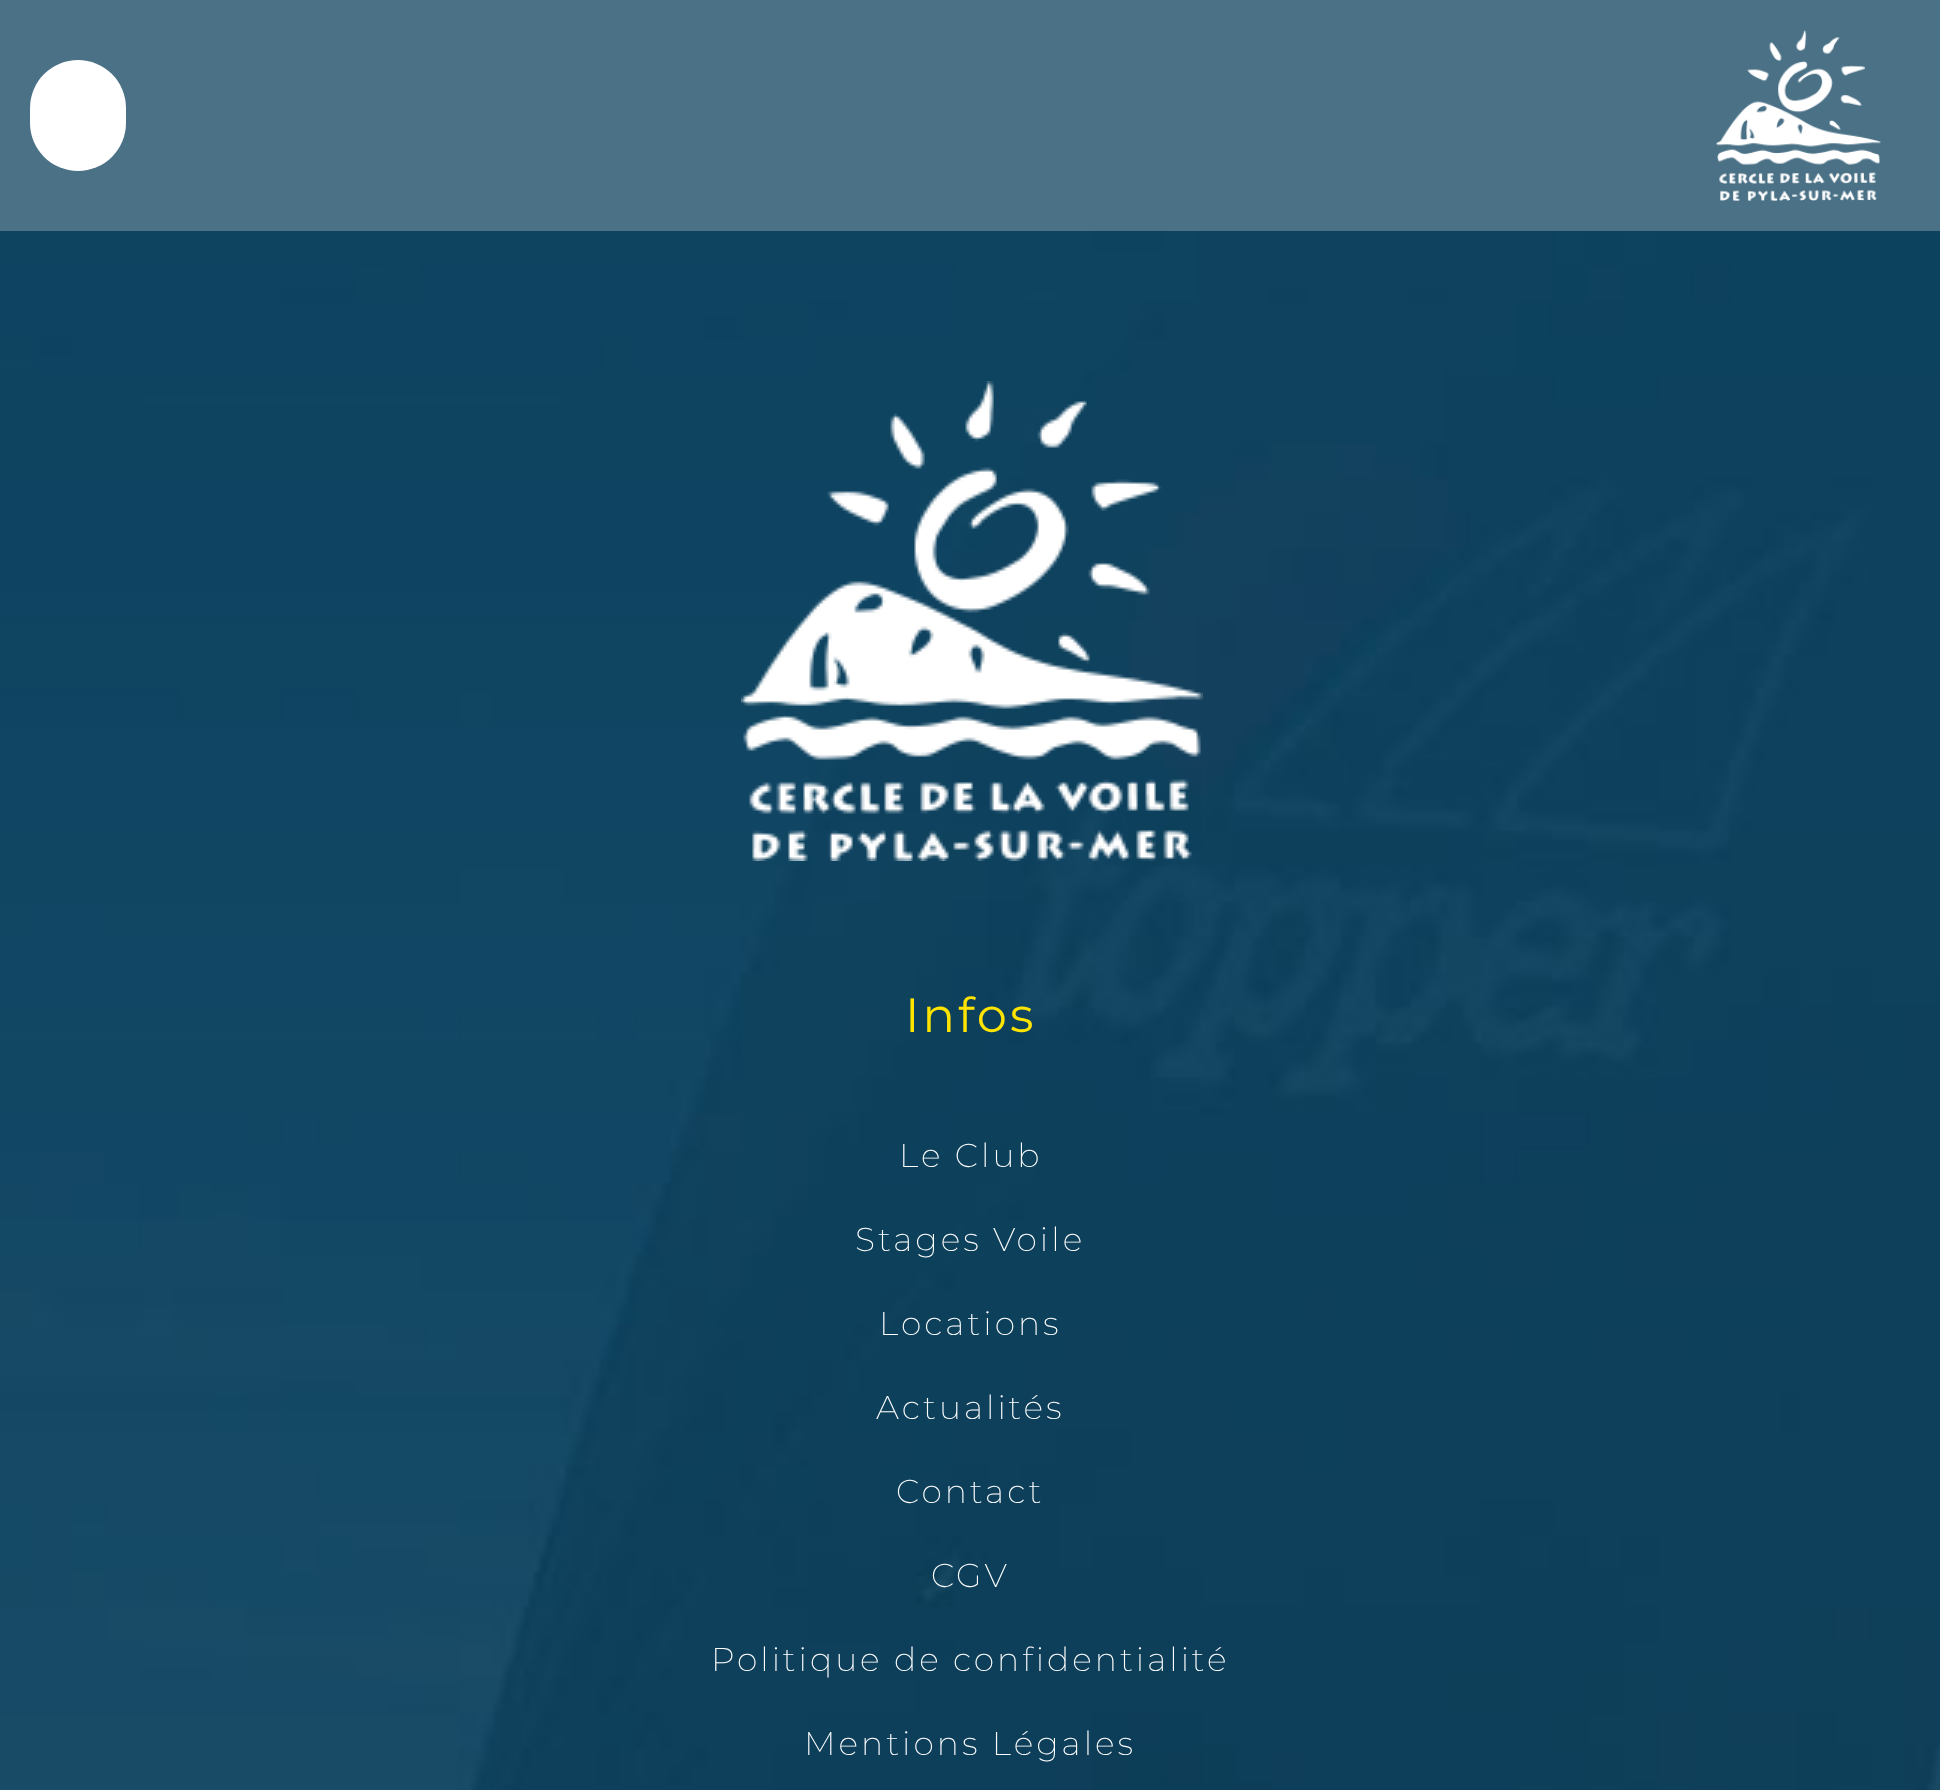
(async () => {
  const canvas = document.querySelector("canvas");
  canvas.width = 1940;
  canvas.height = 1790;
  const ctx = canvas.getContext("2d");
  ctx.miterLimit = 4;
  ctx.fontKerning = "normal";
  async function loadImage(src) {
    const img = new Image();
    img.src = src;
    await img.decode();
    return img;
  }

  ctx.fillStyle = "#ffffff";
  ctx.fillRect(0, 0, 1940, 1790);
  ctx.fillStyle = "#4a7186";
  ctx.fillRect(0, 0, 1940, 231);
  ctx.fillStyle = "#ffffff";
  ctx.beginPath();
  ctx.roundRect(30, 60, 96, 111, 48);
  ctx.fill();
  ctx.drawImage(await loadImage("img/1.png"), 1716, 30, 165, 171);
  ctx.drawImage(await loadImage("img/2.png"), 0, 231, 1940, 1559);
  ctx.drawImage(await loadImage("img/3.png"), 741, 381, 462, 480);
  ctx.letterSpacing = "3px";
  ctx.font = "48px Montserrat";
  ctx.fillStyle = "#ffe400";
  ctx.fillText("Infos", 905, 1032);
  ctx.font = "200 33px Montserrat";
  ctx.fillStyle = "#ffffff";
  for (const [text, x, y] of [
    ["Le Club", 899, 1167],
    ["Stages Voile", 855, 1251],
    ["Locations", 879, 1335],
    ["Actualités", 876, 1419],
    ["Contact", 896, 1503],
    ["CGV", 931, 1587],
    ["Politique de confidentialité", 711, 1671],
    ["Mentions Légales", 804, 1755],
  ]) {
    ctx.fillText(text, x, y);
  }
})();
